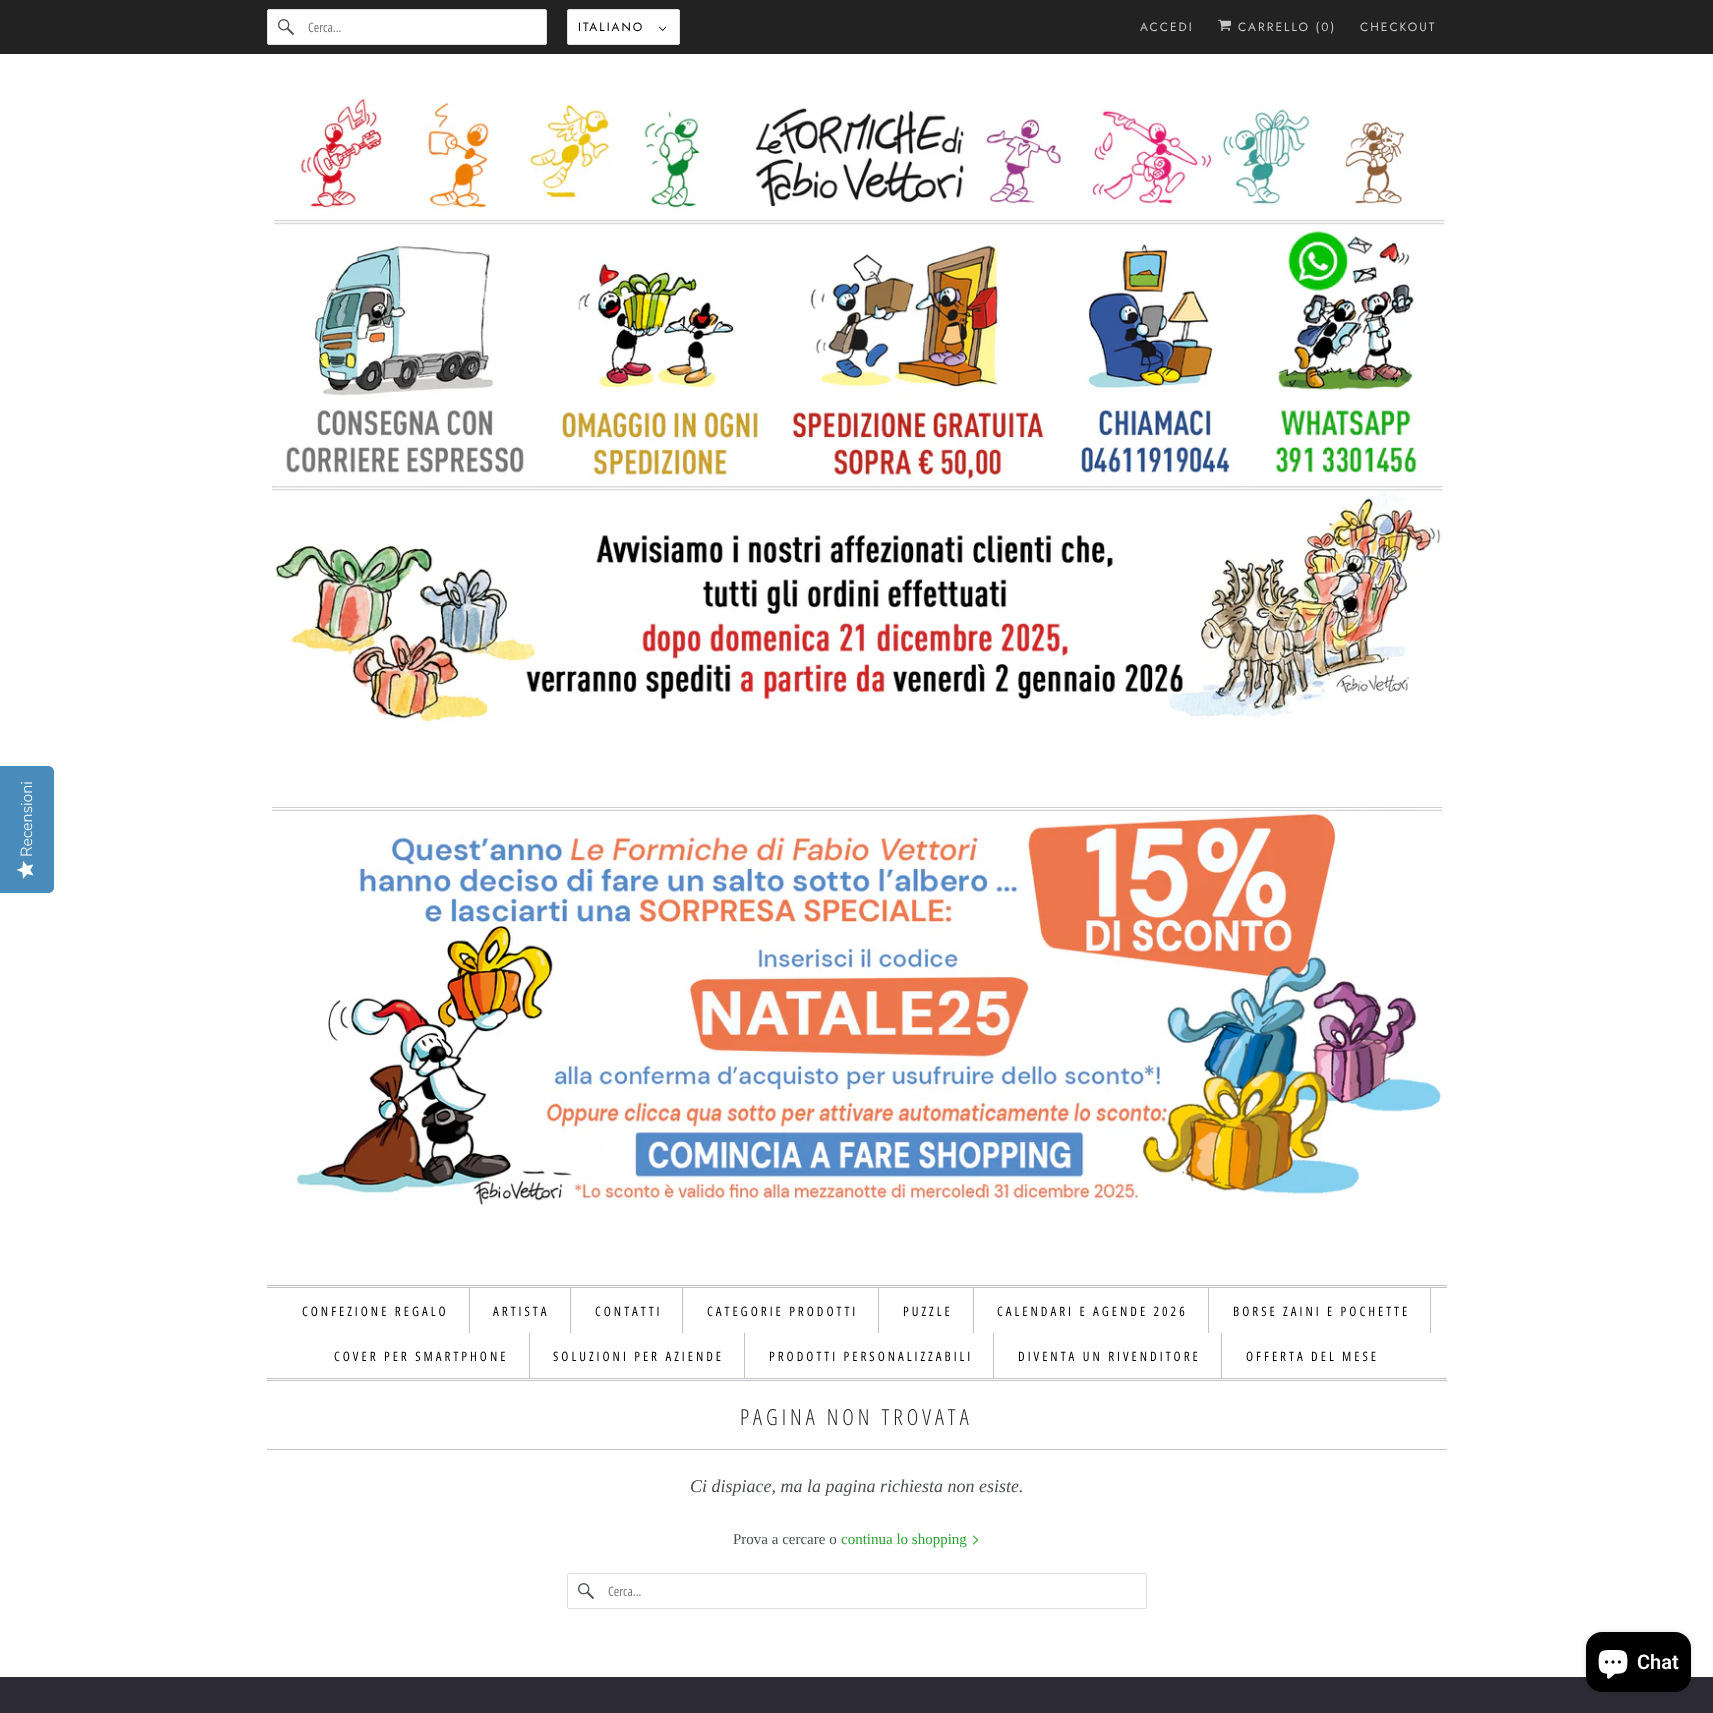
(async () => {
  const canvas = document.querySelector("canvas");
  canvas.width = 1713;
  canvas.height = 1713;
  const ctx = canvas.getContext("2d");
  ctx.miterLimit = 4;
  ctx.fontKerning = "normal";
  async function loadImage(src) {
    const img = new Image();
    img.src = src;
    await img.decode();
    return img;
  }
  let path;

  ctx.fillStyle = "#ffffff";
  ctx.fillRect(0, 0, 1713, 1713);
  ctx.fillStyle = "#222222";
  ctx.fillRect(0, 0, 1713, 54);
  ctx.fillStyle = "#ffffff";
  ctx.beginPath();
  ctx.roundRect(267.5, 9.5, 279, 35, 1.5);
  ctx.fill();
  ctx.strokeStyle = "#dfdfdf";
  ctx.stroke();
  ctx.drawImage(await loadImage("img/1.png"), 278, 19, 16, 16);
  ctx.beginPath();
  ctx.roundRect(567.5, 9.5, 112, 35, 1.5);
  ctx.fill();
  ctx.stroke();
  ctx.drawImage(await loadImage("img/2.png"), 659, 26, 8, 5);
  ctx.drawImage(await loadImage("img/3.png"), 1218, 19, 13, 12);
  ctx.drawImage(await loadImage("img/4.png"), 271, 94, 1174, 629);
  ctx.fillStyle = "#498cbc";
  path = new Path2D("M0 893V766H48C51 766 54 768 54 772V887C54 891 51 893 48 893Z");
  ctx.fill(path);
  ctx.drawImage(await loadImage("img/5.png"), 16, 861, 18, 18);
  ctx.drawImage(await loadImage("img/6.png"), 272, 807, 1173, 399);
  for (const [x, y, w, h, color] of [
    [267, 1285, 1180, 1, "#c2c1cc"],
    [267, 1287, 1180, 1, "#c2c1cc"],
    [267, 1378, 1180, 1, "#c2c1cc"],
    [267, 1380, 1180, 1, "#c2c1cc"],
    [469, 1288, 1, 45, "#c2c1cc"],
    [570, 1288, 1, 45, "#c2c1cc"],
    [682, 1288, 1, 45, "#c2c1cc"],
    [878, 1288, 1, 45, "#c2c1cc"],
    [973, 1288, 1, 45, "#c2c1cc"],
    [1208, 1288, 1, 45, "#c2c1cc"],
    [1430, 1288, 1, 45, "#c2c1cc"],
    [529, 1333, 1, 45, "#c2c1cc"],
    [744, 1333, 1, 45, "#c2c1cc"],
    [993, 1333, 1, 45, "#c2c1cc"],
    [1221, 1333, 1, 45, "#c2c1cc"],
    [267, 1449, 1180, 1, "#c2c1cc"],
  ]) {
    ctx.fillStyle = color;
    ctx.fillRect(x, y, w, h);
  }
  ctx.drawImage(await loadImage("img/7.png"), 972, 1535, 6, 10);
  ctx.beginPath();
  ctx.roundRect(567.5, 1573.5, 579, 35, 1.5);
  ctx.stroke();
  ctx.drawImage(await loadImage("img/1.png"), 578, 1583, 16, 16);
  ctx.fillStyle = "#2d2b35";
  ctx.fillRect(0, 1677, 1713, 36);
  ctx.fillStyle = "rgba(0, 0, 0, 0.15)";
  ctx.filter = "blur(2.5px)";
  ctx.beginPath();
  ctx.roundRect(1586, 1632, 105, 60, 16);
  ctx.fill();
  ctx.filter = "none";
  ctx.fillStyle = "#000000";
  ctx.beginPath();
  ctx.roundRect(1586, 1632, 105, 60, 16);
  ctx.fill();
  ctx.drawImage(await loadImage("img/8.png"), 1598, 1650, 30, 29);
  ctx.font = "13px Open Sans Condensed";
  ctx.fillStyle = "#757575";
  ctx.fillText("Cerca...", 308, 32);
  ctx.letterSpacing = "2px";
  ctx.font = "12px Jost";
  ctx.fillStyle = "#000000";
  ctx.fillText("ITALIANO", 578, 31);
  ctx.fillStyle = "#c6c6c6";
  for (const [text, x, y] of [
    ["ACCEDI", 1140, 31],
    ["CARRELLO (0)", 1238, 31],
    ["CHECKOUT", 1360, 31],
  ]) {
    ctx.fillText(text, x, y);
  }
  ctx.letterSpacing = "0px";
  ctx.font = "300 16px Nunito Sans";
  ctx.fillStyle = "#fefefe";
  ctx.save();
  ctx.translate(32, 857);
  ctx.rotate(-90 * Math.PI / 180);
  ctx.fillText("Recensioni", 0, 0);
  ctx.restore();
  ctx.letterSpacing = "3px";
  ctx.font = "13px Open Sans Condensed";
  ctx.fillStyle = "#000000";
  for (const [text, x, y] of [
    ["CONFEZIONE REGALO", 302, 1316],
    ["ARTISTA", 493, 1316],
    ["CONTATTI", 595, 1316],
    ["CATEGORIE PRODOTTI", 707, 1316],
    ["PUZZLE", 903, 1316],
    ["CALENDARI E AGENDE 2026", 997, 1316],
    ["BORSE ZAINI E POCHETTE", 1233, 1316],
    ["COVER PER SMARTPHONE", 334, 1361],
    ["SOLUZIONI PER AZIENDE", 553, 1361],
    ["PRODOTTI PERSONALIZZABILI", 769, 1361],
    ["DIVENTA UN RIVENDITORE", 1018, 1361],
    ["OFFERTA DEL MESE", 1246, 1361],
  ]) {
    ctx.fillText(text, x, y);
  }
  ctx.letterSpacing = "4px";
  ctx.font = "300 22px Open Sans Condensed";
  ctx.fillStyle = "#1f2022";
  ctx.fillText("PAGINA NON TROVATA", 740, 1425);
  ctx.letterSpacing = "0px";
  ctx.font = "italic 18px Liberation Serif";
  ctx.fillStyle = "#4b4f54";
  ctx.fillText("Ci dispiace, ma la pagina richiesta non esiste.", 690, 1492);
  ctx.font = "15px Liberation Serif";
  ctx.fillText("Prova a cercare o", 733, 1544);
  ctx.fillStyle = "#29a332";
  ctx.fillText("continua lo shopping", 841, 1544);
  ctx.font = "13px Open Sans Condensed";
  ctx.fillStyle = "#757575";
  ctx.fillText("Cerca...", 608, 1596);
  ctx.font = "600 20px Roboto";
  ctx.fillStyle = "#fefefe";
  ctx.fillText("Chat", 1637, 1669);
})();
